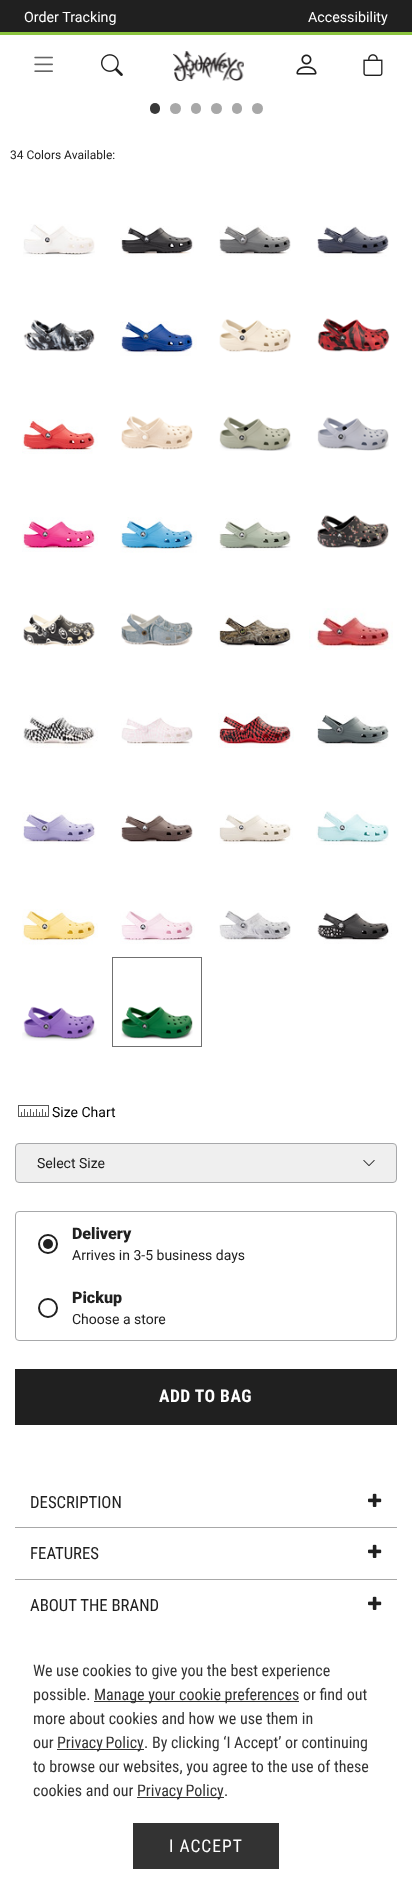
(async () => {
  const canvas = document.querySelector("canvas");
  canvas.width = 412;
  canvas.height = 1894;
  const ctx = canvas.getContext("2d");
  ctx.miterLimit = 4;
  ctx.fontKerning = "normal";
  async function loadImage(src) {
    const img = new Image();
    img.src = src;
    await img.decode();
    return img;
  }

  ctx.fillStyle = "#ffffff";
  ctx.fillRect(0, 0, 412, 1894);
  ctx.fillStyle = "#202020";
  ctx.fillRect(0, 0, 412, 32);
  ctx.fillStyle = "#8bc43e";
  ctx.fillRect(0, 32, 412, 3);
  ctx.drawImage(await loadImage("img/1.png"), 34, 56, 19, 16);
  ctx.drawImage(await loadImage("img/2.png"), 101, 54, 22, 22);
  ctx.drawImage(await loadImage("img/3.png"), 173, 51, 71, 30);
  ctx.drawImage(await loadImage("img/4.png"), 296, 54, 21, 21);
  ctx.drawImage(await loadImage("img/5.png"), 363, 54, 20, 22);
  ctx.fillStyle = "#383838";
  ctx.beginPath();
  ctx.roundRect(150, 103, 10, 11, 5);
  ctx.fill();
  ctx.fillStyle = "#a8a8a8";
  ctx.beginPath();
  ctx.arc(175.5, 108.5, 5.5, 0, Math.PI * 2);
  ctx.fill();
  ctx.beginPath();
  ctx.roundRect(191, 103, 10, 11, 5);
  ctx.fill();
  ctx.beginPath();
  ctx.arc(216.5, 108.5, 5.5, 0, Math.PI * 2);
  ctx.fill();
  ctx.beginPath();
  ctx.roundRect(232, 103, 10, 11, 5);
  ctx.fill();
  ctx.beginPath();
  ctx.arc(257.5, 108.5, 5.5, 0, Math.PI * 2);
  ctx.fill();
  ctx.drawImage(await loadImage("img/6.png"), 23, 224, 72, 33);
  ctx.drawImage(await loadImage("img/7.png"), 120, 226, 74, 31);
  ctx.drawImage(await loadImage("img/8.png"), 219, 225, 72, 31);
  ctx.drawImage(await loadImage("img/9.png"), 317, 226, 72, 31);
  ctx.drawImage(await loadImage("img/10.png"), 23, 319, 72, 33);
  ctx.drawImage(await loadImage("img/11.png"), 120, 321, 77, 35);
  ctx.drawImage(await loadImage("img/12.png"), 219, 319, 72, 34);
  ctx.drawImage(await loadImage("img/13.png"), 317, 318, 73, 34);
  ctx.drawImage(await loadImage("img/14.png"), 22, 419, 76, 35);
  ctx.drawImage(await loadImage("img/15.png"), 121, 416, 72, 34);
  ctx.drawImage(await loadImage("img/16.png"), 219, 416, 73, 35);
  ctx.drawImage(await loadImage("img/17.png"), 317, 417, 72, 34);
  ctx.drawImage(await loadImage("img/18.png"), 22, 517, 76, 35);
  ctx.drawImage(await loadImage("img/19.png"), 120, 517, 77, 36);
  ctx.drawImage(await loadImage("img/20.png"), 219, 518, 72, 33);
  ctx.drawImage(await loadImage("img/21.png"), 317, 515, 72, 33);
  ctx.drawImage(await loadImage("img/22.png"), 23, 614, 72, 32);
  ctx.drawImage(await loadImage("img/23.png"), 121, 613, 72, 33);
  ctx.drawImage(await loadImage("img/24.png"), 218, 615, 76, 32);
  ctx.drawImage(await loadImage("img/25.png"), 309, 608, 84, 42);
  ctx.drawImage(await loadImage("img/26.png"), 23, 715, 75, 33);
  ctx.drawImage(await loadImage("img/27.png"), 121, 717, 72, 29);
  ctx.drawImage(await loadImage("img/28.png"), 218, 713, 76, 35);
  ctx.drawImage(await loadImage("img/29.png"), 317, 715, 72, 32);
  ctx.drawImage(await loadImage("img/30.png"), 22, 812, 74, 32);
  ctx.drawImage(await loadImage("img/31.png"), 120, 814, 73, 28);
  ctx.drawImage(await loadImage("img/32.png"), 219, 814, 74, 30);
  ctx.drawImage(await loadImage("img/33.png"), 316, 811, 73, 34);
  ctx.drawImage(await loadImage("img/34.png"), 22, 909, 76, 36);
  ctx.drawImage(await loadImage("img/35.png"), 120, 911, 75, 33);
  ctx.drawImage(await loadImage("img/36.png"), 219, 910, 72, 32);
  ctx.drawImage(await loadImage("img/37.png"), 317, 911, 75, 33);
  ctx.drawImage(await loadImage("img/38.png"), 22, 1006, 75, 35);
  ctx.strokeStyle = "#707070";
  ctx.strokeRect(112.5, 957.5, 89, 89);
  ctx.drawImage(await loadImage("img/39.png"), 121, 1006, 72, 34);
  ctx.drawImage(await loadImage("img/40.png"), 18, 1105, 31, 12);
  ctx.fillStyle = "#efefef";
  ctx.beginPath();
  ctx.roundRect(15.5, 1143.5, 381, 39, 3.5);
  ctx.fill();
  ctx.strokeStyle = "#a7a8aa";
  ctx.stroke();
  ctx.drawImage(await loadImage("img/41.png"), 363, 1160, 12, 6);
  ctx.beginPath();
  ctx.roundRect(15.5, 1211.5, 381, 129, 3.5);
  ctx.stroke();
  ctx.beginPath();
  ctx.arc(48, 1244, 9, 0, Math.PI * 2);
  ctx.strokeStyle = "#202020";
  ctx.lineWidth = 2;
  ctx.stroke();
  ctx.fillStyle = "#202020";
  ctx.beginPath();
  ctx.arc(48, 1244, 5, 0, Math.PI * 2);
  ctx.fill();
  ctx.beginPath();
  ctx.arc(48, 1308, 9, 0, Math.PI * 2);
  ctx.stroke();
  ctx.fillRect(15, 1369, 382, 56);
  ctx.drawImage(await loadImage("img/42.png"), 368, 1493, 14, 14);
  ctx.fillStyle = "#a8a8a8";
  ctx.fillRect(15, 1527, 382, 1);
  ctx.drawImage(await loadImage("img/42.png"), 368, 1544, 14, 14);
  ctx.fillRect(15, 1579, 382, 1);
  ctx.drawImage(await loadImage("img/42.png"), 368, 1596, 14, 14);
  for (const [x, y, w, h, color] of [
    [94, 1701, 205, 1, "#333333"],
    [57, 1749, 87, 1, "#333333"],
    [137, 1797, 87, 1, "#333333"],
    [133, 1823, 146, 46, "#333333"],
  ]) {
    ctx.fillStyle = color;
    ctx.fillRect(x, y, w, h);
  }
  ctx.font = "14.25px Roboto";
  ctx.fillStyle = "#ffffff";
  ctx.fillText("Order Tracking", 24, 22);
  ctx.fillText("Accessibility", 308, 22);
  ctx.font = "12px Roboto";
  ctx.fillStyle = "#202020";
  ctx.fillText("34 Colors Available:", 10, 159);
  ctx.font = "14px Roboto";
  ctx.fillStyle = "#000000";
  ctx.fillText("Size Chart", 52, 1117);
  ctx.fillStyle = "#202020";
  ctx.fillText("Select Size", 37, 1168);
  ctx.font = "900 16px Roboto";
  ctx.fillText("Delivery", 72, 1239);
  ctx.font = "14px Roboto";
  ctx.fillText("Arrives in 3-5 business days", 72, 1260);
  ctx.font = "900 16px Roboto";
  ctx.fillText("Pickup", 72, 1303);
  ctx.font = "14px Roboto";
  ctx.fillText("Choose a store", 72, 1324);
  ctx.letterSpacing = "0.5px";
  ctx.font = "bold 17.5px Roboto Condensed";
  ctx.fillStyle = "#ffffff";
  ctx.fillText("ADD TO BAG", 159, 1402);
  ctx.letterSpacing = "0px";
  ctx.font = "16.75px Roboto Condensed";
  ctx.fillStyle = "#202020";
  for (const [text, x, y] of [
    ["DESCRIPTION", 30, 1508],
    ["FEATURES", 30, 1559],
    ["ABOUT THE BRAND", 30, 1611],
  ]) {
    ctx.fillText(text, x, y);
  }
  ctx.font = "16px Roboto Condensed";
  ctx.fillStyle = "#333333";
  for (const [text, x, y] of [
    ["We use cookies to give you the best experience", 33, 1676],
    ["possible.", 33, 1700],
    ["Manage your cookie preferences or find out", 94, 1700],
    ["more about cookies and how we use them in", 33, 1724],
    ["our", 33, 1748],
  ]) {
    ctx.fillText(text, x, y);
  }
  ctx.wordSpacing = "-1px";
  ctx.fillText("Privacy Policy", 57, 1748);
  ctx.wordSpacing = "0px";
  for (const [text, x, y] of [
    [". By clicking ‘I Accept’ or continuing", 144, 1748],
    ["to browse our websites, you agree to the use of these", 33, 1772],
    ["cookies and our", 33, 1796],
  ]) {
    ctx.fillText(text, x, y);
  }
  ctx.wordSpacing = "-1px";
  ctx.fillText("Privacy Policy", 137, 1796);
  ctx.wordSpacing = "0px";
  ctx.fillText(".", 224, 1796);
  ctx.letterSpacing = "1px";
  ctx.font = "17.5px Roboto Condensed";
  ctx.fillStyle = "#ffffff";
  ctx.fillText("I ACCEPT", 169, 1852);
})();
